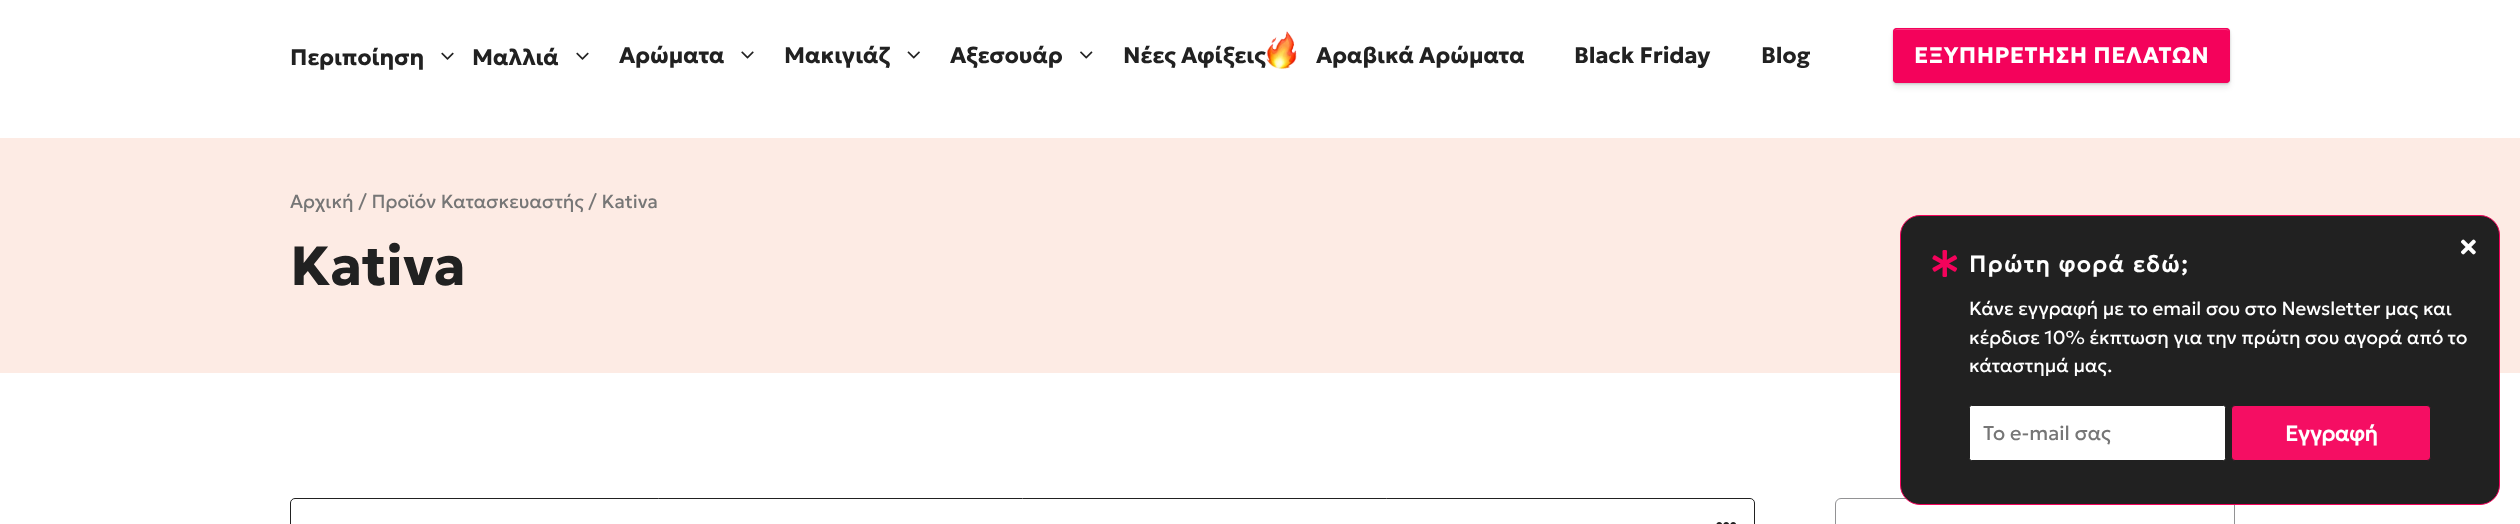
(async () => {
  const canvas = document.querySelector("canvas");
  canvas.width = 2520;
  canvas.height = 524;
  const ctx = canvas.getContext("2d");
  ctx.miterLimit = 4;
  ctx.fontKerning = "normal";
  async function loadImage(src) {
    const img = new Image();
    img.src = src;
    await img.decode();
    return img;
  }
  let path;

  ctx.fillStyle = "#ffffff";
  ctx.fillRect(0, 0, 2520, 524);
  ctx.drawImage(await loadImage("img/1.png"), 441, 52, 13, 8);
  ctx.drawImage(await loadImage("img/1.png"), 576, 52, 13, 8);
  ctx.drawImage(await loadImage("img/2.png"), 741, 51, 13, 8);
  ctx.drawImage(await loadImage("img/3.png"), 907, 51, 13, 8);
  ctx.drawImage(await loadImage("img/4.png"), 1080, 51, 13, 8);
  ctx.drawImage(await loadImage("img/5.png"), 1266, 31, 31, 38);
  ctx.fillStyle = "rgba(8, 8, 8, 0.2)";
  ctx.filter = "blur(1px)";
  ctx.beginPath();
  ctx.roundRect(1893, 29, 337, 55, 4);
  ctx.fill();
  ctx.filter = "none";
  ctx.fillStyle = "rgba(8, 8, 8, 0.08)";
  ctx.filter = "blur(2.5px)";
  ctx.beginPath();
  ctx.roundRect(1893, 33, 337, 55, 4);
  ctx.fill();
  ctx.filter = "none";
  ctx.fillStyle = "#f4025b";
  ctx.beginPath();
  ctx.roundRect(1893, 28, 337, 55, 4);
  ctx.fill();
  ctx.fillStyle = "#f6357c";
  path = new Path2D("M1896 30H2226C2228 30 2229 31 2229 32C2229 30 2228 29 2226 29H1896C1895 29 1894 30 1894 32C1894 31 1895 30 1896 30Z");
  ctx.fill(path);
  ctx.beginPath();
  ctx.roundRect(1893.5, 28.5, 336, 54, 3.5);
  ctx.strokeStyle = "#f4025b";
  ctx.stroke();
  ctx.fillStyle = "#fdebe4";
  ctx.fillRect(0, 138, 2520, 235);
  ctx.beginPath();
  ctx.roundRect(1835.5, 498.5, 399, 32, 5.5);
  ctx.strokeStyle = "#929294";
  ctx.stroke();
  ctx.fillStyle = "#212121";
  ctx.beginPath();
  ctx.roundRect(1900.5, 215.5, 599, 289, 19.5);
  ctx.fill();
  ctx.strokeStyle = "#f4025b";
  ctx.stroke();
  ctx.drawImage(await loadImage("img/6.png"), 2461, 239, 15, 16);
  ctx.drawImage(await loadImage("img/7.png"), 1932, 250, 26, 27);
  ctx.fillStyle = "#ffffff";
  ctx.beginPath();
  ctx.roundRect(1969.5, 405.5, 256, 55, 2);
  ctx.fill();
  ctx.strokeStyle = "#212121";
  ctx.stroke();
  ctx.fillStyle = "#f50e63";
  ctx.beginPath();
  ctx.roundRect(2231.5, 405.5, 199, 55, 3.5);
  ctx.fill();
  ctx.stroke();
  ctx.beginPath();
  ctx.roundRect(290.5, 498.5, 1464, 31, 4.5);
  ctx.stroke();
  ctx.drawImage(await loadImage("img/8.png"), 1716, 522, 20, 2);
  ctx.font = "100 22.5px 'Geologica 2'";
  ctx.fillStyle = "#212121";
  for (const [text, x, y] of [
    ["Περιποίηση", 290, 65],
    ["Μαλλιά", 472, 65],
    ["Αρώματα", 619, 63],
    ["Μακιγιάζ", 784, 63],
    ["Αξεσουάρ", 950, 63],
    ["Νέες Αφίξεις", 1123, 63],
    ["Αραβικά Αρώματα", 1316, 63],
    ["Black Friday", 1574, 63],
    ["Blog", 1761, 63],
  ]) {
    ctx.fillText(text, x, y);
  }
  ctx.letterSpacing = "0.5px";
  ctx.fillStyle = "#ffffff";
  ctx.fillText("ΕΞΥΠΗΡΕΤΗΣΗ ΠΕΛΑΤΩΝ", 1914, 63);
  ctx.letterSpacing = "0px";
  ctx.font = "100 18.8px Geologica";
  ctx.fillStyle = "#767676";
  ctx.fillText("Αρχική / Προϊόν Κατασκευαστής / Kativa", 290, 208);
  ctx.font = "100 55px 'Geologica 2'";
  ctx.fillStyle = "#212121";
  ctx.fillText("Kativa", 290, 285);
  ctx.letterSpacing = "1.9px";
  ctx.font = "bold 22.5px Geologica";
  ctx.fillStyle = "#ffffff";
  ctx.fillText("Πρώτη φορά εδώ;", 1969, 272);
  ctx.letterSpacing = "0px";
  ctx.font = "100 18.8px Geologica";
  for (const [text, x, y] of [
    ["Κάνε εγγραφή με το email σου στο Νewsletter μας και", 1969, 315],
    ["κέρδισε 10% έκπτωση για την πρώτη σου αγορά από το", 1969, 344],
    ["κάταστημά μας.", 1969, 372],
  ]) {
    ctx.fillText(text, x, y);
  }
  ctx.font = "100 20px Geologica";
  ctx.fillStyle = "#767676";
  ctx.fillText("Το e-mail σας", 1983, 440);
  ctx.font = "bold 21.25px Geologica";
  ctx.fillStyle = "#ffffff";
  ctx.fillText("Εγγραφή", 2285, 441);
})();
